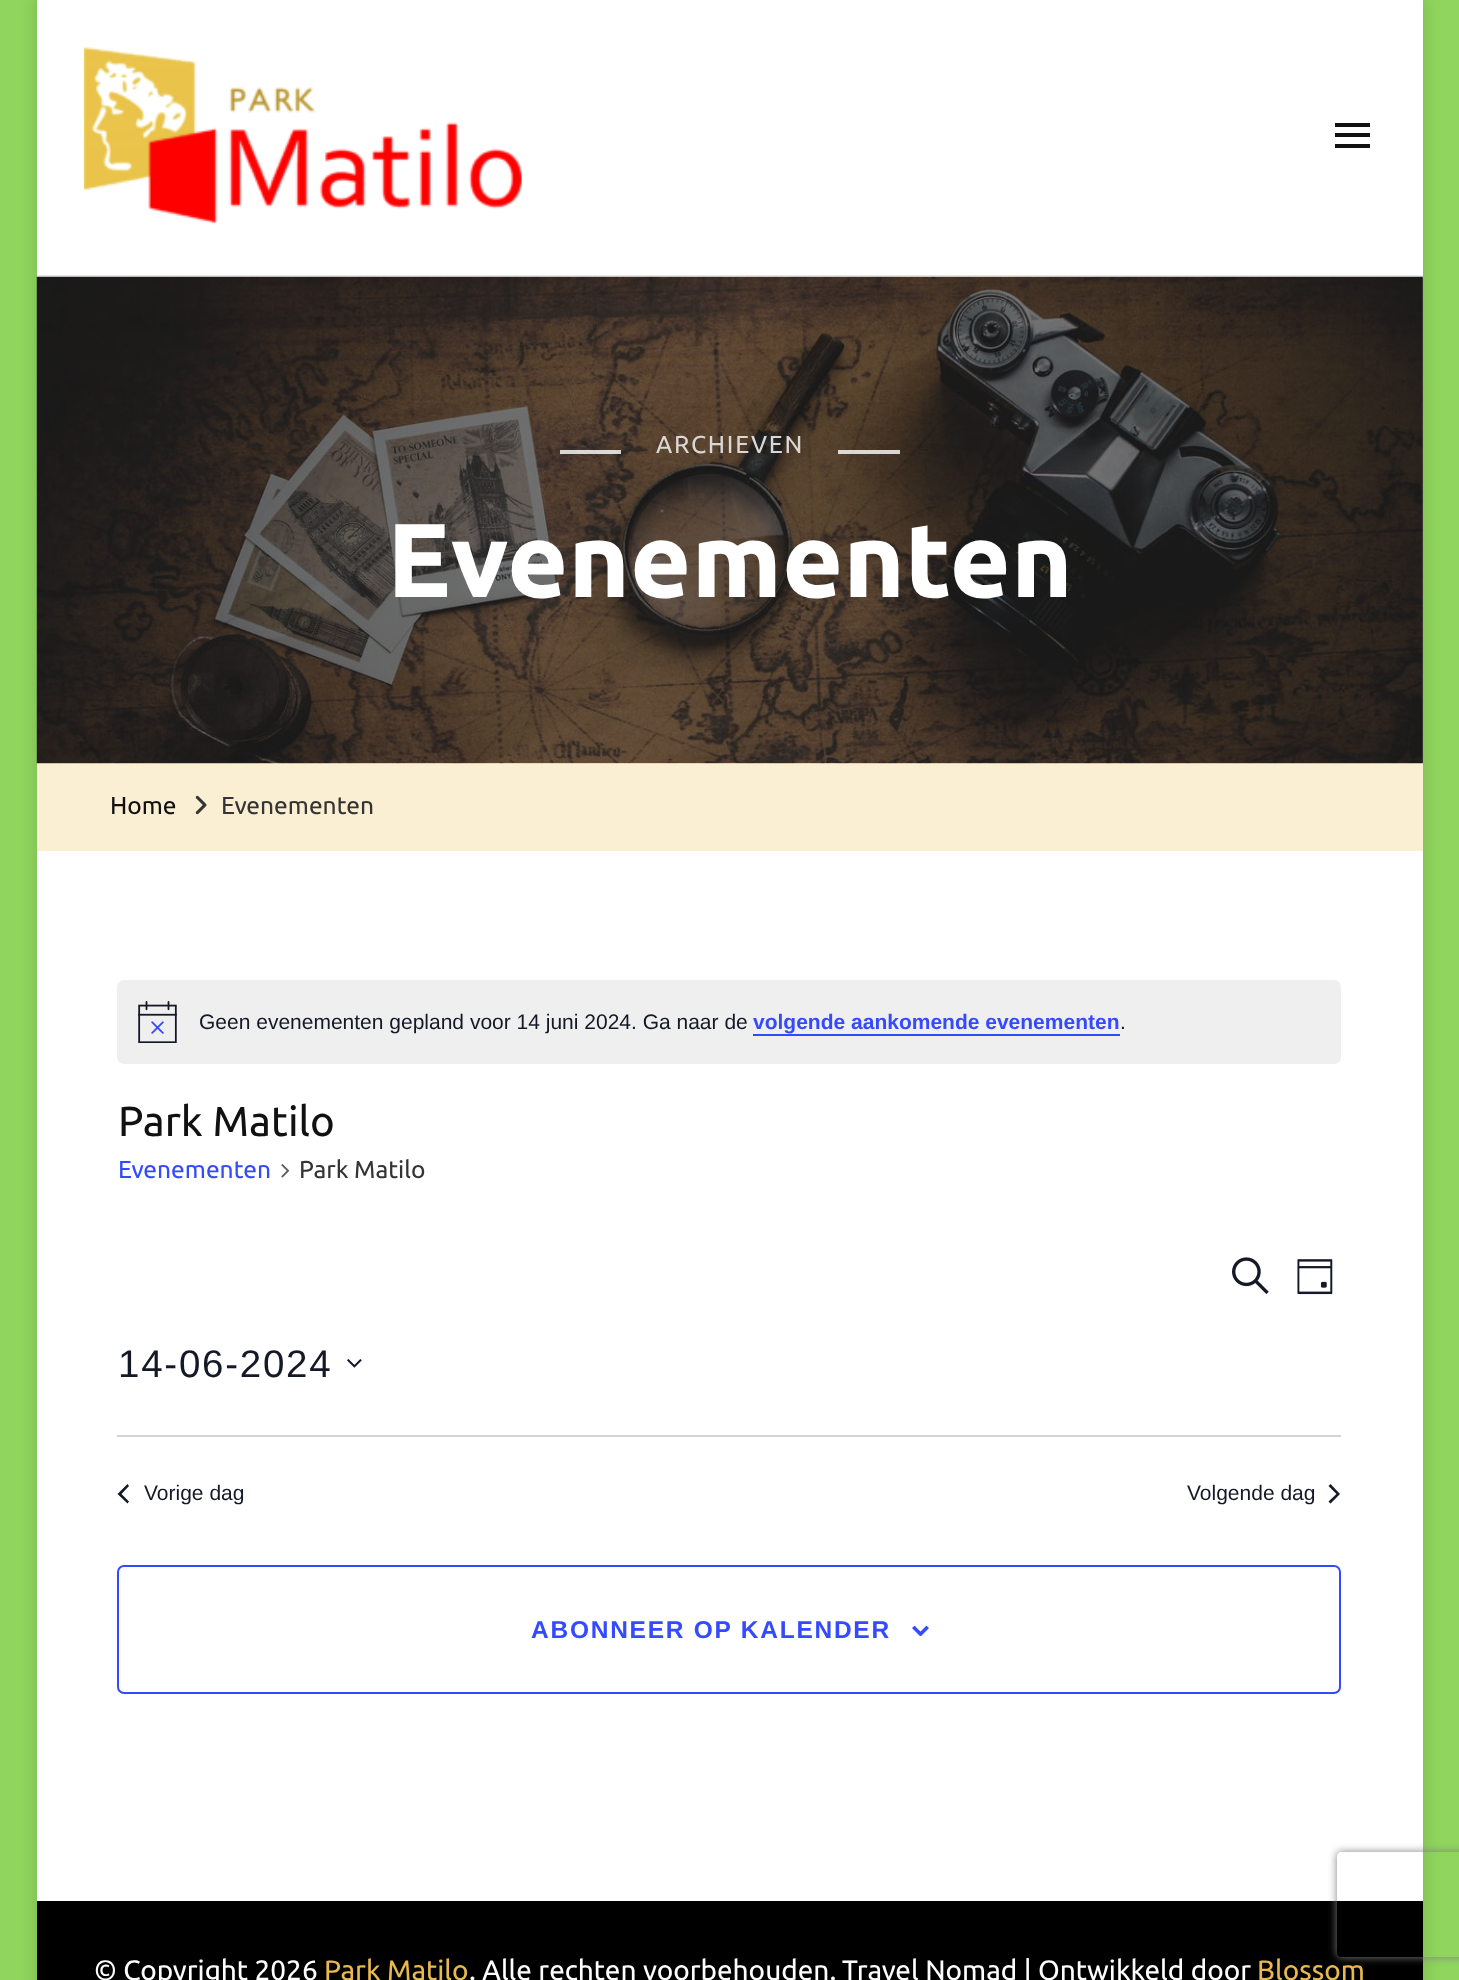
(async () => {
  const canvas = document.querySelector("canvas");
  canvas.width = 1459;
  canvas.height = 1980;
  const ctx = canvas.getContext("2d");
  ctx.miterLimit = 4;
  ctx.fontKerning = "normal";
  async function loadImage(src) {
    const img = new Image();
    img.src = src;
    await img.decode();
    return img;
  }
  let path;

  ctx.fillStyle = "#90d65e";
  ctx.fillRect(0, 0, 1459, 1980);
  ctx.fillStyle = "rgba(0, 0, 0, 0.15)";
  ctx.filter = "blur(9px)";
  ctx.beginPath();
  ctx.rect(37, -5, 1386, 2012);
  ctx.fill();
  ctx.filter = "none";
  ctx.fillStyle = "#ffffff";
  ctx.fillRect(37, 0, 1386, 1901);
  ctx.fillStyle = "#e6e6e6";
  ctx.fillRect(37, 275, 1386, 2);
  ctx.drawImage(await loadImage("img/1.png"), 84, 47, 438, 176);
  for (const [x, y, w, h, color] of [
    [1335, 123, 35, 4, "#111111"],
    [1335, 133, 35, 4, "#111111"],
    [1335, 144, 35, 4, "#111111"],
    [37, 763, 1386, 88, "#faeed3"],
  ]) {
    ctx.fillStyle = color;
    ctx.fillRect(x, y, w, h);
  }
  ctx.drawImage(await loadImage("img/2.png"), 36, 276, 1387, 488);
  for (const [x, y, w, h, color] of [
    [37, 277, 1386, 486, "rgba(0, 0, 0, 0.5)"],
    [560, 450, 61, 4, "rgba(255, 255, 255, 0.8)"],
    [838, 450, 62, 4, "rgba(255, 255, 255, 0.8)"],
  ]) {
    ctx.fillStyle = color;
    ctx.fillRect(x, y, w, h);
  }
  ctx.drawImage(await loadImage("img/3.png"), 195, 795, 12, 20);
  ctx.fillStyle = "#efeff0";
  ctx.beginPath();
  ctx.roundRect(117, 980, 1224, 84, 7);
  ctx.fill();
  ctx.drawImage(await loadImage("img/4.png"), 138, 1001, 39, 42);
  ctx.fillStyle = "#334aff";
  ctx.fillRect(753, 1034, 367, 2);
  ctx.drawImage(await loadImage("img/5.png"), 281, 1164, 9, 14);
  ctx.drawImage(await loadImage("img/6.png"), 1232, 1257, 37, 37);
  ctx.drawImage(await loadImage("img/7.png"), 1297, 1259, 36, 36);
  ctx.drawImage(await loadImage("img/8.png"), 347, 1359, 15, 9);
  ctx.fillStyle = "#d5d5d5";
  ctx.fillRect(117, 1435, 1224, 2);
  ctx.fillStyle = "#141827";
  path = new Path2D("M129 1501.5L127.5 1503.5L117.5 1494L127.5 1484L129 1486L121.5 1494Z");
  ctx.fill(path);
  path = new Path2D("M1328.5 1486L1330.5 1484L1340 1494L1330.5 1503.5L1328.5 1501.5L1336.5 1494Z");
  ctx.fill(path);
  ctx.beginPath();
  ctx.roundRect(118, 1566, 1222, 127, 6);
  ctx.strokeStyle = "#334aff";
  ctx.lineWidth = 2;
  ctx.stroke();
  ctx.drawImage(await loadImage("img/9.png"), 912, 1626, 17, 10);
  ctx.fillStyle = "#000000";
  ctx.fillRect(37, 1901, 1386, 79);
  ctx.save();
  path = new Path2D("M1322 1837H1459V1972H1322ZM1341 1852H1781C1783 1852 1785 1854 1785 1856V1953C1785 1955 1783 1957 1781 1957H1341C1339 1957 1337 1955 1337 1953V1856C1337 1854 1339 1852 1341 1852Z");
  ctx.clip(path, "evenodd");
  ctx.fillStyle = "#808080";
  ctx.filter = "blur(4.5px)";
  ctx.beginPath();
  ctx.roundRect(1337, 1852, 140, 105, 4);
  ctx.fill();
  ctx.filter = "none";
  ctx.restore();
  ctx.letterSpacing = "1.75px";
  ctx.font = "24.5px Ubuntu";
  ctx.fillStyle = "#dbd7d5";
  ctx.fillText("ARCHIEVEN", 656, 453);
  ctx.letterSpacing = "0px";
  ctx.font = "bold 105px Ubuntu";
  ctx.fillStyle = "#ffffff";
  ctx.fillText("Evenementen", 387, 597);
  ctx.font = "24.5px Ubuntu";
  ctx.fillStyle = "#111111";
  ctx.fillText("Home", 110, 814);
  ctx.fillStyle = "#343434";
  ctx.fillText("Evenementen", 221, 814);
  ctx.font = "21px Liberation Sans";
  ctx.fillStyle = "#141827";
  ctx.fillText("Geen evenementen gepland voor 14 juni 2024. Ga naar de", 199, 1029);
  ctx.font = "bold 21px Liberation Sans";
  ctx.fillStyle = "#334aff";
  ctx.fillText("volgende aankomende evenementen", 753, 1029);
  ctx.font = "21px Liberation Sans";
  ctx.fillStyle = "#141827";
  ctx.fillText(".", 1120, 1029);
  ctx.font = "42px Ubuntu";
  ctx.fillStyle = "#111111";
  ctx.fillText("Park Matilo", 118, 1136);
  ctx.font = "24.5px Ubuntu";
  ctx.fillStyle = "#334aff";
  ctx.fillText("Evenementen", 118, 1178);
  ctx.fillStyle = "#343434";
  ctx.fillText("Park Matilo", 299, 1178);
  ctx.letterSpacing = "1.75px";
  ctx.font = "38.5px Liberation Sans";
  ctx.fillStyle = "#141827";
  ctx.fillText("14-06-2024", 118, 1377);
  ctx.letterSpacing = "0px";
  ctx.font = "21px Liberation Sans";
  ctx.fillText("Vorige dag", 144, 1500);
  ctx.fillText("Volgende dag", 1187, 1500);
  ctx.letterSpacing = "1.75px";
  ctx.font = "bold 24.5px Liberation Sans";
  ctx.fillStyle = "#334aff";
  ctx.fillText("ABONNEER OP KALENDER", 531, 1638);
  ctx.letterSpacing = "0px";
  ctx.font = "28px Ubuntu";
  ctx.fillStyle = "#ffffff";
  ctx.fillText("© Copyright 2026", 94, 1980);
  ctx.fillStyle = "#e8b94e";
  ctx.fillText("Park Matilo", 324, 1980);
  ctx.fillStyle = "#ffffff";
  ctx.fillText(". Alle rechten voorbehouden.", 469, 1980);
  ctx.fillText("Travel Nomad | Ontwikkeld door", 842, 1980);
  ctx.fillStyle = "#e8b94e";
  ctx.fillText("Blossom", 1257, 1980);
})();
